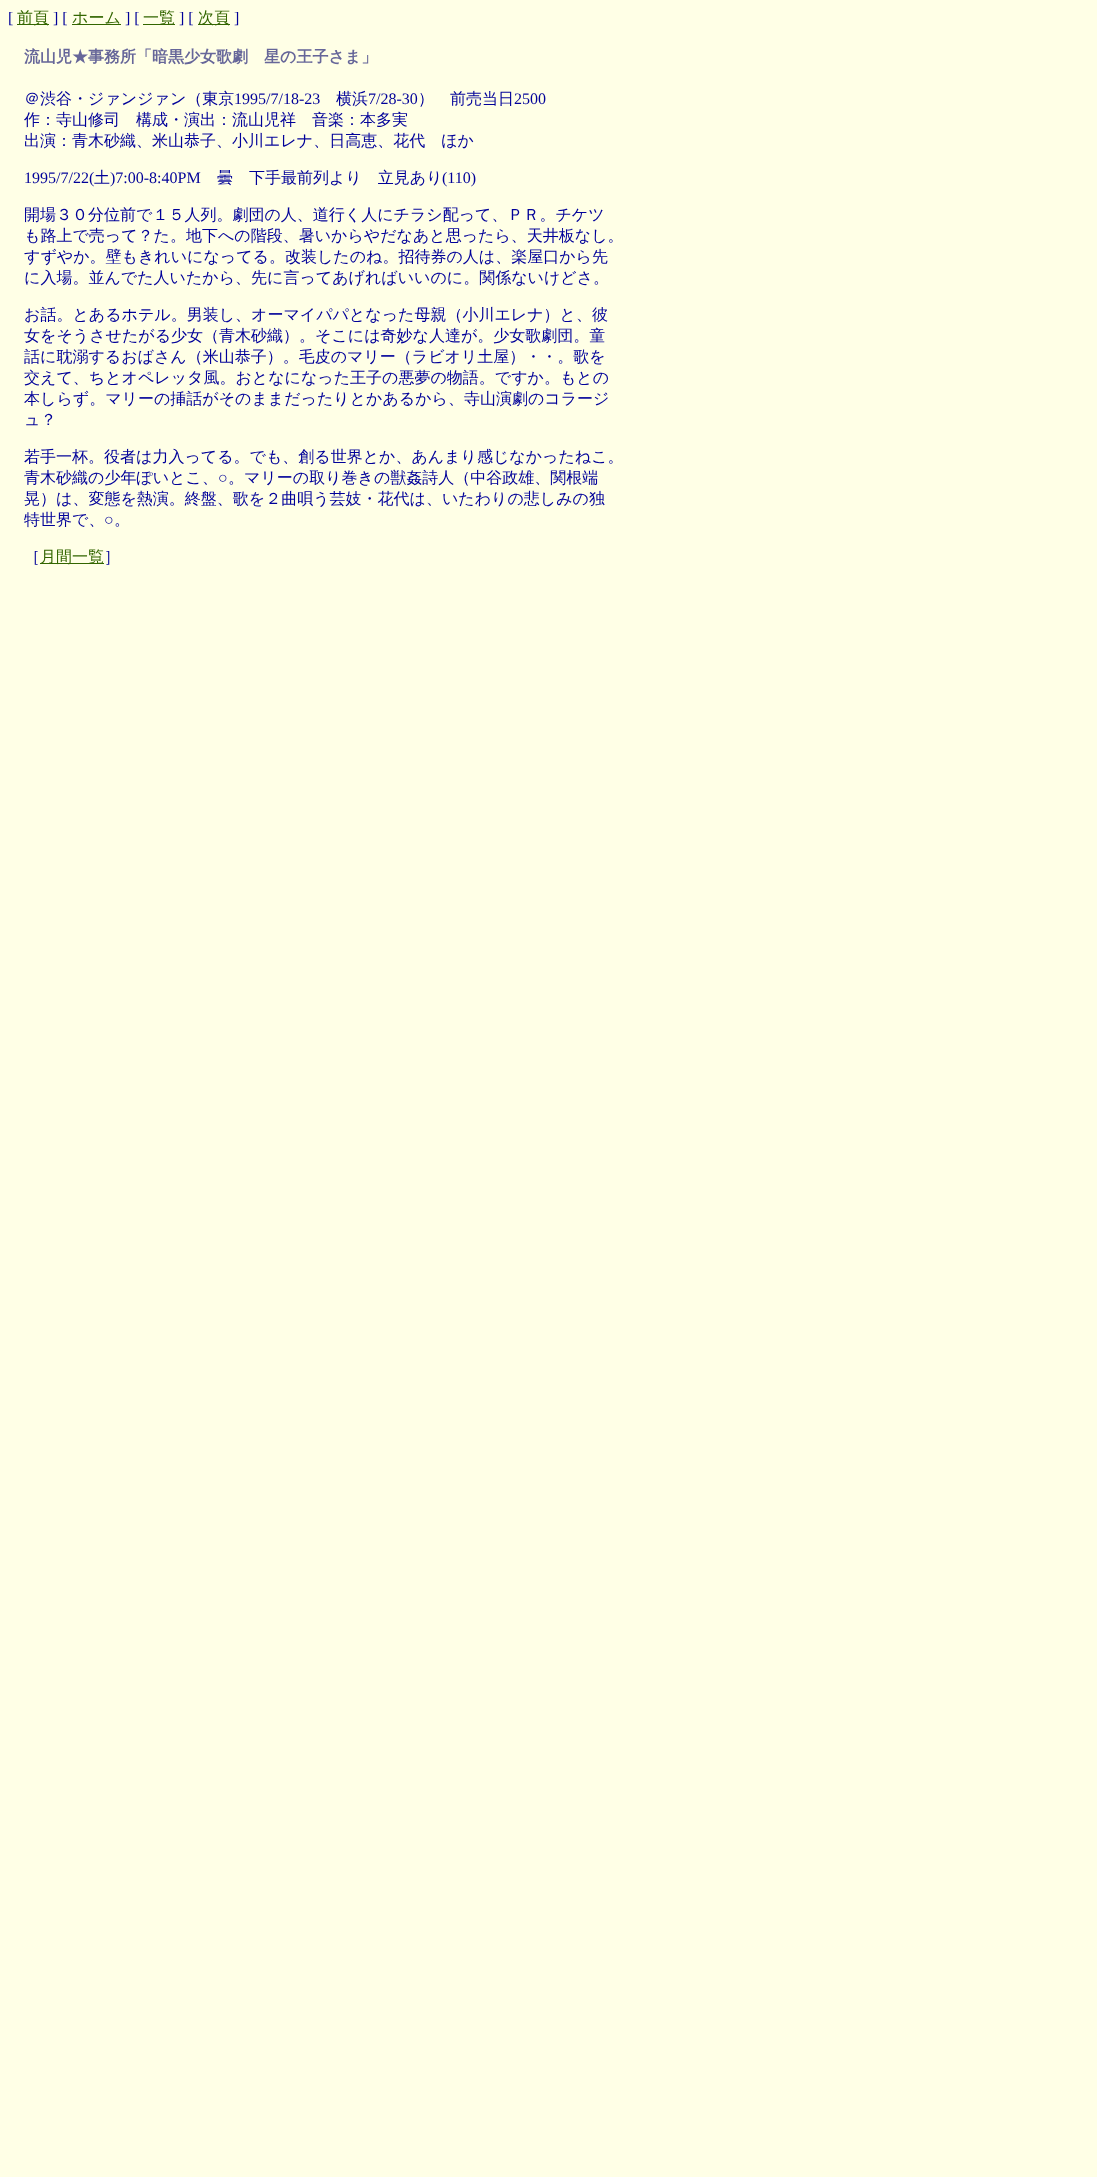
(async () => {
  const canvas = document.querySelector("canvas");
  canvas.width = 1097;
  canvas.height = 2177;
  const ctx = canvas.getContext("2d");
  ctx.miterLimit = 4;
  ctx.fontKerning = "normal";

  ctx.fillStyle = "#ffffe6";
  ctx.fillRect(0, 0, 1097, 2177);
  for (const [x, y, w, h, color] of [
    [17, 24, 32, 1, "#336600"],
    [72, 24, 49, 1, "#336600"],
    [143, 24, 32, 1, "#336600"],
    [198, 24, 32, 1, "#336600"],
    [40, 563, 64, 1, "#336600"],
  ]) {
    ctx.fillStyle = color;
    ctx.fillRect(x, y, w, h);
  }
  ctx.font = "16px Liberation Serif";
  ctx.fillStyle = "#000099";
  ctx.fillText("[", 8, 23);
  ctx.font = "500 16px WenQuanYi Zen Hei";
  ctx.fillStyle = "#336600";
  ctx.fillText("前頁", 17, 23);
  ctx.font = "16px Liberation Serif";
  ctx.fillStyle = "#000099";
  ctx.fillText("] [", 53, 23);
  ctx.font = "500 16px WenQuanYi Zen Hei";
  ctx.fillStyle = "#336600";
  ctx.fillText("ホーム", 72, 23);
  ctx.font = "16px Liberation Serif";
  ctx.fillStyle = "#000099";
  ctx.fillText("] [", 125, 23);
  ctx.font = "500 16px WenQuanYi Zen Hei";
  ctx.fillStyle = "#336600";
  ctx.fillText("一覧", 143, 23);
  ctx.font = "16px Liberation Serif";
  ctx.fillStyle = "#000099";
  ctx.fillText("] [", 179, 23);
  ctx.font = "500 16px WenQuanYi Zen Hei";
  ctx.fillStyle = "#336600";
  ctx.fillText("次頁", 198, 23);
  ctx.font = "16px Liberation Serif";
  ctx.fillStyle = "#000099";
  ctx.fillText("]", 234, 23);
  ctx.font = "bold 16px WenQuanYi Zen Hei";
  ctx.fillStyle = "#666699";
  ctx.fillText("流山児★事務所「暗黒少女歌劇　星の王子さま」", 24, 62);
  ctx.font = "500 16px WenQuanYi Zen Hei";
  ctx.fillStyle = "#000099";
  ctx.fillText("＠渋谷・ジァンジァン（東京", 24, 104);
  ctx.font = "16px Liberation Serif";
  ctx.fillText("1995/7/18-23", 234, 104);
  ctx.font = "500 16px WenQuanYi Zen Hei";
  ctx.fillText("横浜", 336, 104);
  ctx.font = "16px Liberation Serif";
  ctx.fillText("7/28-30", 368, 104);
  ctx.font = "500 16px WenQuanYi Zen Hei";
  ctx.fillText("）　前売当日", 418, 104);
  ctx.font = "16px Liberation Serif";
  ctx.fillText("2500", 514, 104);
  ctx.font = "500 16px WenQuanYi Zen Hei";
  ctx.fillText("作：寺山修司　構成・演出：流山児祥　音楽：本多実", 24, 125);
  ctx.fillText("出演：青木砂織、米山恭子、小川エレナ、日高恵、花代　ほか", 24, 146);
  ctx.font = "16px Liberation Serif";
  ctx.fillText("1995/7/22(", 24, 183);
  ctx.font = "500 16px WenQuanYi Zen Hei";
  ctx.fillText("土", 94, 183);
  ctx.font = "16px Liberation Serif";
  ctx.fillText(")7:00-8:40PM", 110, 183);
  ctx.font = "500 16px WenQuanYi Zen Hei";
  ctx.fillText("曇　下手最前列より　立見あり", 217, 183);
  ctx.font = "16px Liberation Serif";
  ctx.fillText("(110)", 442, 183);
  ctx.font = "500 16px WenQuanYi Zen Hei";
  for (const [text, x, y] of [
    ["開場３０分位前で１５人列。劇団の人、道行く人にチラシ配って、ＰＲ。チケツ", 24, 220],
    ["も路上で売って？た。地下への階段、暑いからやだなあと思ったら、天井板なし。", 24, 241],
    ["すずやか。壁もきれいになってる。改装したのね。招待券の人は、楽屋口から先", 24, 262],
    ["に入場。並んでた人いたから、先に言ってあげればいいのに。関係ないけどさ。", 24, 283],
    ["お話。とあるホテル。男装し、オーマイパパとなった母親（小川エレナ）と、彼", 24, 320],
    ["女をそうさせたがる少女（青木砂織）。そこには奇妙な人達が。少女歌劇団。童", 24, 341],
    ["話に耽溺するおばさん（米山恭子）。毛皮のマリー（ラビオリ土屋）・・。歌を", 24, 362],
    ["交えて、ちとオペレッタ風。おとなになった王子の悪夢の物語。ですか。もとの", 24, 383],
    ["本しらず。マリーの挿話がそのままだったりとかあるから、寺山演劇のコラージ", 24, 404],
    ["ュ？", 24, 425],
    ["若手一杯。役者は力入ってる。でも、創る世界とか、あんまり感じなかったねこ。", 24, 462],
    ["青木砂織の少年ぽいとこ、", 24, 483],
  ]) {
    ctx.fillText(text, x, y);
  }
  ctx.font = "16px Liberation Serif";
  ctx.fillText("○", 218, 483);
  ctx.font = "500 16px WenQuanYi Zen Hei";
  for (const [text, x, y] of [
    ["。マリーの取り巻きの獣姦詩人（中谷政雄、関根端", 228, 483],
    ["晃）は、変態を熱演。終盤、歌を２曲唄う芸妓・花代は、いたわりの悲しみの独", 24, 504],
    ["特世界で、", 24, 525],
  ]) {
    ctx.fillText(text, x, y);
  }
  ctx.font = "16px Liberation Serif";
  ctx.fillText("○", 104, 525);
  ctx.font = "500 16px WenQuanYi Zen Hei";
  ctx.fillText("。", 114, 525);
  ctx.fillText("［", 24, 562);
  ctx.fillStyle = "#336600";
  ctx.fillText("月間一覧", 40, 562);
  ctx.fillStyle = "#000099";
  ctx.fillText("］", 104, 562);
})();
